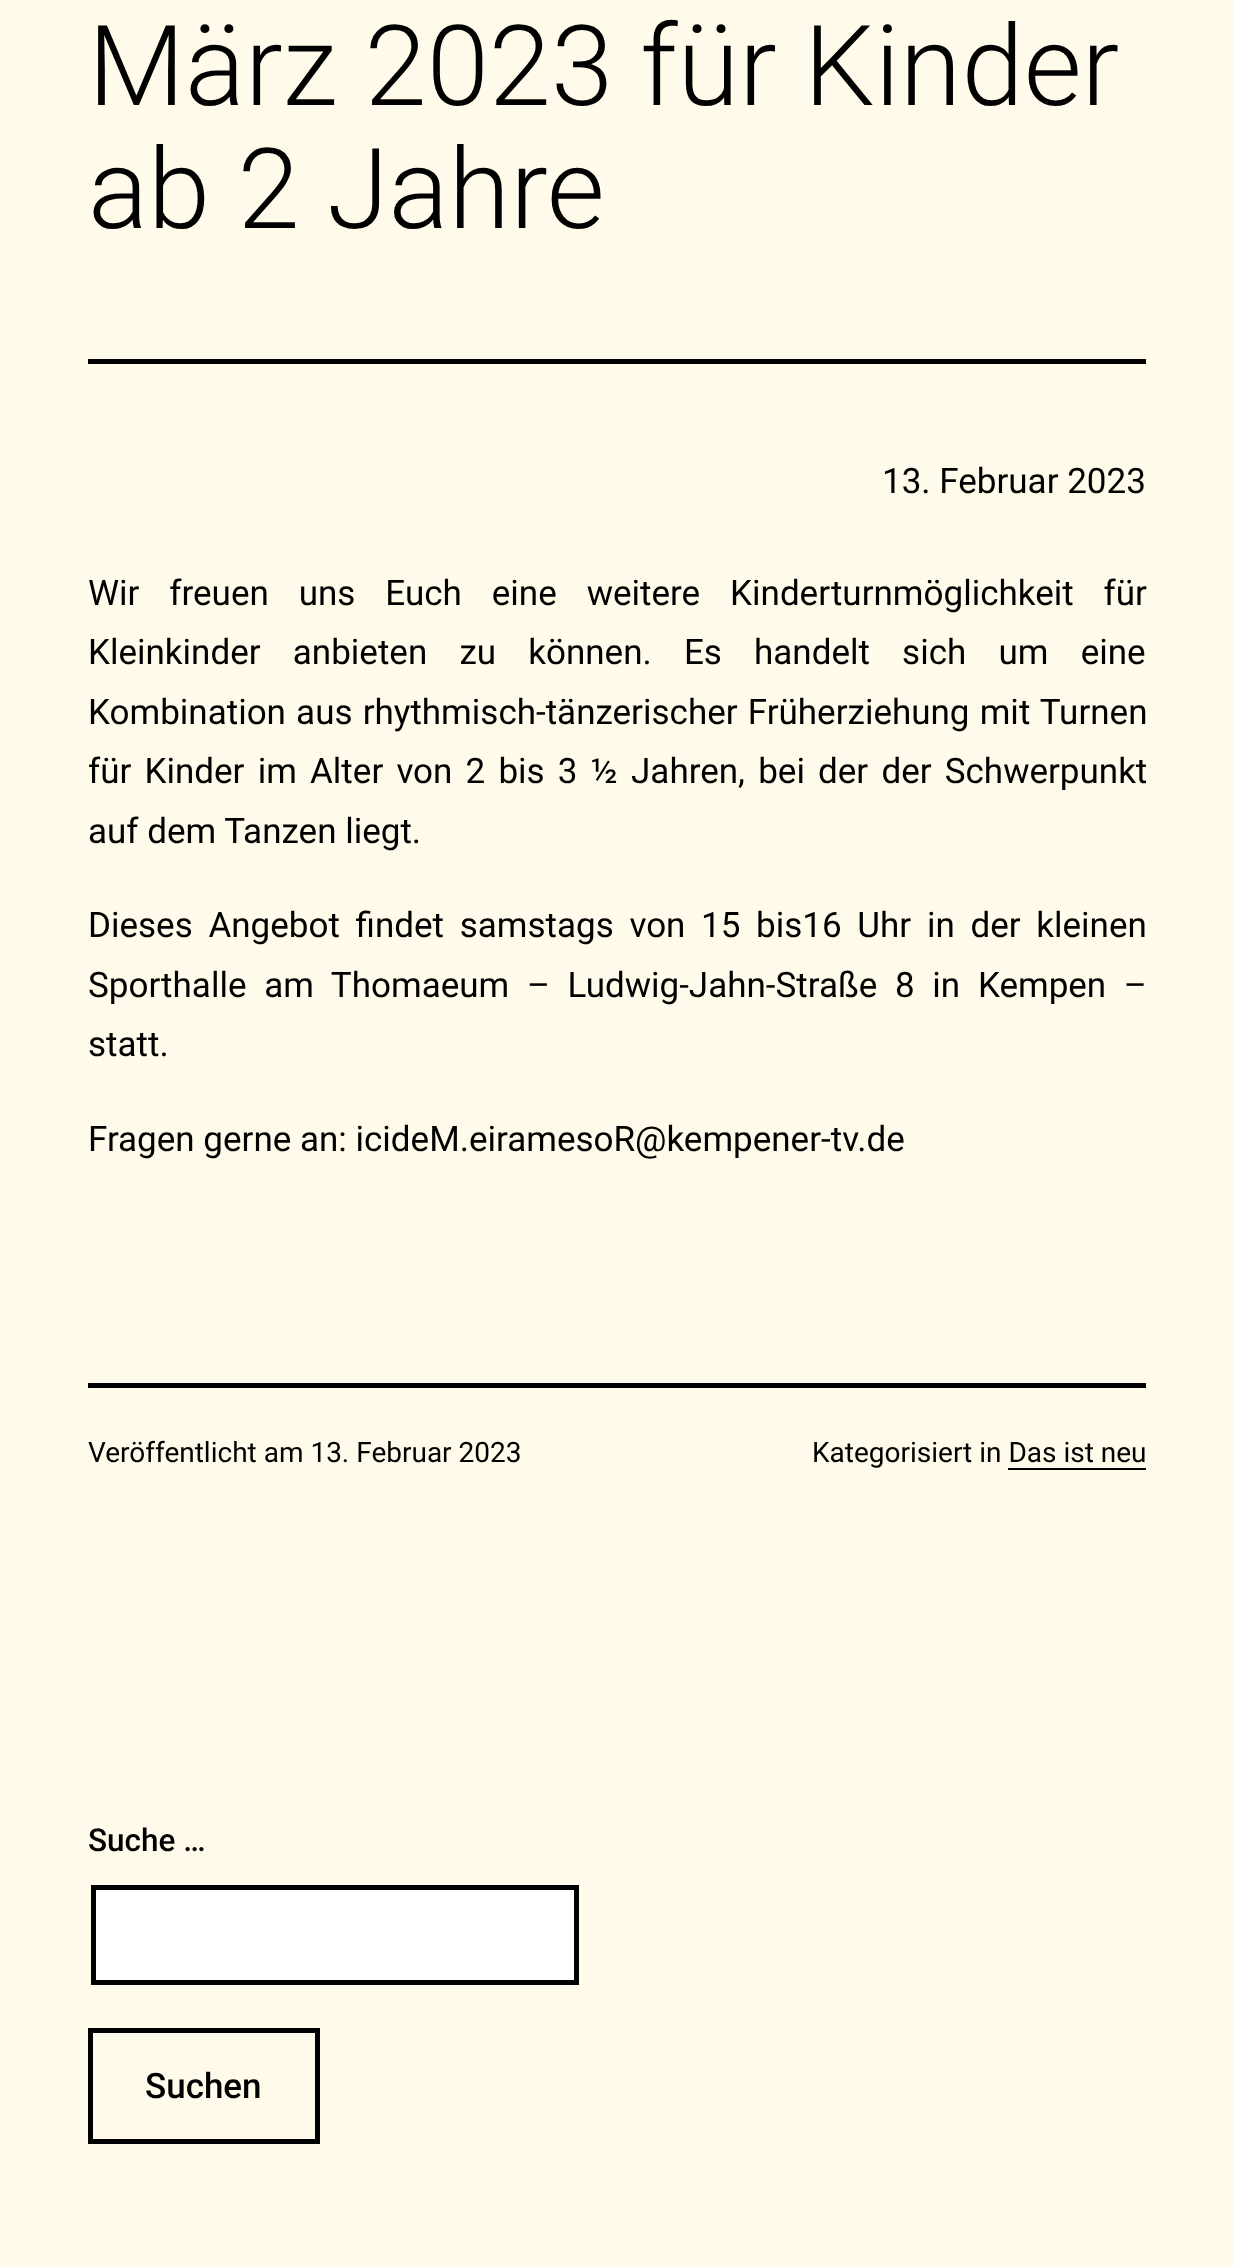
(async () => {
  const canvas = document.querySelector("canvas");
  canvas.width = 1233;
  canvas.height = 2267;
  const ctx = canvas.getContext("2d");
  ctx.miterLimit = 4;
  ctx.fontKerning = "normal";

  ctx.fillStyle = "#fffaea";
  ctx.fillRect(0, 0, 1233, 2267);
  for (const [x, y, w, h, color] of [
    [88, 359, 1058, 5, "#000000"],
    [88, 1383, 1058, 5, "#000000"],
    [1008, 1468, 138, 2, "#000000"],
  ]) {
    ctx.fillStyle = color;
    ctx.fillRect(x, y, w, h);
  }
  ctx.fillStyle = "#ffffff";
  ctx.beginPath();
  ctx.rect(93.5, 1887.5, 483, 95);
  ctx.fill();
  ctx.strokeStyle = "#000000";
  ctx.lineWidth = 5;
  ctx.stroke();
  ctx.strokeRect(90.5, 2030.5, 227, 111);
  ctx.font = "300 112px Roboto";
  ctx.fillStyle = "#000000";
  ctx.fillText("März 2023 für Kinder", 88, 105);
  ctx.fillText("ab 2 Jahre", 88, 228);
  ctx.font = "35px Roboto";
  ctx.fillText("13. Februar 2023", 882, 493);
  ctx.wordSpacing = "21.25px";
  ctx.fillText("Wir freuen uns Euch eine weitere Kinderturnmöglichkeit für", 88, 605);
  ctx.wordSpacing = "23.5px";
  ctx.fillText("Kleinkinder anbieten zu können. Es handelt sich um eine", 88, 664);
  ctx.wordSpacing = "1.5px";
  ctx.fillText("Kombination aus rhythmisch-tänzerischer Früherziehung mit Turnen", 88, 724);
  ctx.wordSpacing = "4.5px";
  ctx.fillText("für Kinder im Alter von 2 bis 3 ½ Jahren, bei der der Schwerpunkt", 88, 783);
  ctx.wordSpacing = "0px";
  ctx.fillText("auf dem Tanzen liegt.", 88, 843);
  ctx.wordSpacing = "7px";
  ctx.fillText("Dieses Angebot findet samstags von 15 bis16 Uhr in der kleinen", 88, 937);
  ctx.wordSpacing = "9px";
  ctx.fillText("Sporthalle am Thomaeum – Ludwig-Jahn-Straße 8 in Kempen –", 88, 997);
  ctx.wordSpacing = "0px";
  for (const [text, x, y] of [
    ["statt.", 88, 1056],
    ["Fragen gerne an: icideM.eiramesoR", 88, 1151],
    ["@kempener-tv.de", 635, 1151],
  ]) {
    ctx.fillText(text, x, y);
  }
  ctx.font = "28px Roboto";
  ctx.fillText("Veröffentlicht am 13. Februar 2023", 88, 1462);
  ctx.fillText("Kategorisiert in Das ist neu", 812, 1462);
  ctx.font = "500 31.5px Roboto";
  ctx.fillText("Suche …", 88, 1851);
  ctx.font = "500 35px Roboto";
  ctx.fillText("Suchen", 145, 2098);
})();
